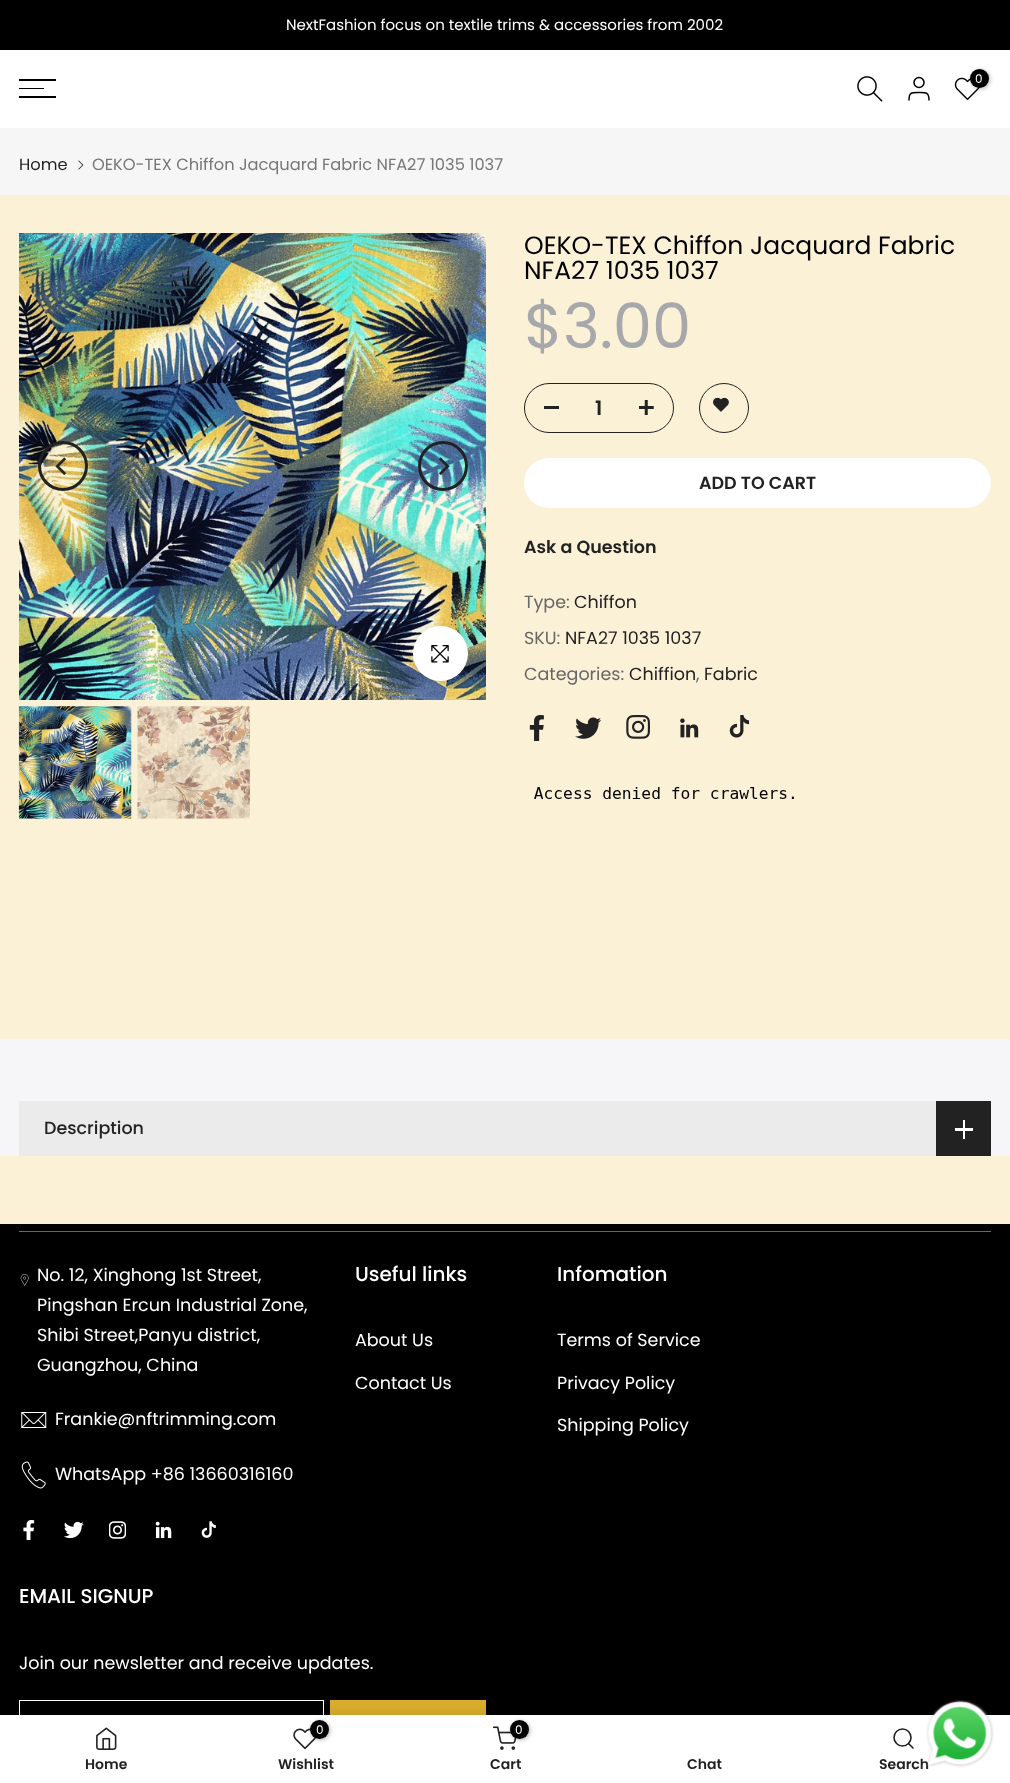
(async () => {
  const canvas = document.querySelector("canvas");
  canvas.width = 1010;
  canvas.height = 1783;
  const ctx = canvas.getContext("2d");
  ctx.miterLimit = 4;
  ctx.fontKerning = "normal";
  async function loadImage(src) {
    const img = new Image();
    img.src = src;
    await img.decode();
    return img;
  }
  let path;

  ctx.fillStyle = "#fbf1d7";
  ctx.fillRect(0, 0, 1010, 1783);
  ctx.fillStyle = "#000000";
  ctx.fillRect(0, 0, 1010, 50);
  ctx.fillStyle = "#ffffff";
  ctx.fillRect(0, 50, 1010, 78);
  ctx.drawImage(await loadImage("img/1.png"), 857, 76, 26, 26);
  ctx.beginPath();
  ctx.arc(919, 82.5, 5, 0, Math.PI * 2);
  ctx.strokeStyle = "#000000";
  ctx.lineWidth = 1.5;
  ctx.stroke();
  path = new Path2D("M929 100C929 92 925.5 92.5 919 92.5C912 92.5 909 92 909 100");
  ctx.lineCap = "round";
  ctx.lineJoin = "round";
  ctx.stroke(path);
  ctx.drawImage(await loadImage("img/2.png"), 954, 77, 26, 23);
  ctx.fillStyle = "rgba(0, 0, 0, 0.3)";
  ctx.filter = "blur(2px)";
  ctx.beginPath();
  ctx.roundRect(971, 70, 19, 19, 9.5);
  ctx.fill();
  ctx.filter = "none";
  ctx.fillStyle = "#000000";
  ctx.beginPath();
  ctx.arc(979.5, 78.5, 9.5, 0, Math.PI * 2);
  ctx.fill();
  for (const [x, y, w, h, color] of [
    [19, 79, 37, 2, "#000000"],
    [19, 88, 25, 1, "#000000"],
    [19, 96, 37, 2, "#000000"],
    [0, 128, 1010, 67, "#f6f6f6"],
  ]) {
    ctx.fillStyle = color;
    ctx.fillRect(x, y, w, h);
  }
  ctx.drawImage(await loadImage("img/3.png"), 78, 160, 6, 10);
  ctx.drawImage(await loadImage("img/4.png"), 19, 233, 467, 467);
  ctx.beginPath();
  ctx.arc(63, 466, 23.5, 0, Math.PI * 2);
  ctx.strokeStyle = "#222222";
  ctx.lineWidth = 3;
  ctx.stroke();
  ctx.drawImage(await loadImage("img/5.png"), 55, 457, 11, 18);
  ctx.beginPath();
  ctx.arc(443, 466, 23.5, 0, Math.PI * 2);
  ctx.stroke();
  ctx.drawImage(await loadImage("img/6.png"), 439, 457, 11, 18);
  ctx.fillStyle = "rgba(0, 0, 0, 0.09)";
  ctx.filter = "blur(3px)";
  ctx.beginPath();
  ctx.roundRect(413, 626, 55, 55, 27.5);
  ctx.fill();
  ctx.filter = "none";
  ctx.fillStyle = "#ffffff";
  ctx.beginPath();
  ctx.arc(440.5, 653.5, 27.5, 0, Math.PI * 2);
  ctx.fill();
  ctx.drawImage(await loadImage("img/7.png"), 431, 645, 18, 18);
  ctx.drawImage(await loadImage("img/8.png"), 18, 706, 114, 113);
  ctx.drawImage(await loadImage("img/9.png"), 137, 706, 113, 113);
  ctx.beginPath();
  ctx.roundRect(524.5, 383.5, 149, 49, 24.5);
  ctx.lineWidth = 1;
  ctx.lineJoin = "miter";
  ctx.stroke();
  ctx.fillStyle = "#222222";
  ctx.fillRect(544, 406, 15, 3);
  ctx.drawImage(await loadImage("img/10.png"), 639, 400, 15, 15);
  ctx.beginPath();
  ctx.arc(724, 408, 24.5, 0, Math.PI * 2);
  ctx.stroke();
  ctx.drawImage(await loadImage("img/11.png"), 713, 397, 16, 15);
  ctx.fillStyle = "#ffffff";
  ctx.beginPath();
  ctx.roundRect(524, 458, 467, 50, 25);
  ctx.fill();
  ctx.drawImage(await loadImage("img/12.png"), 529, 715, 15, 26);
  ctx.drawImage(await loadImage("img/13.png"), 575, 717, 26, 22);
  ctx.drawImage(await loadImage("img/14.png"), 626, 715, 24, 24);
  ctx.drawImage(await loadImage("img/15.png"), 680, 718, 19, 20);
  ctx.drawImage(await loadImage("img/16.png"), 729, 715, 21, 23);
  ctx.drawImage(await loadImage("img/17.png"), 534, 787, 260, 12);
  for (const [x, y, w, h, color] of [
    [0, 1039, 1010, 117, "#f6f6f8"],
    [19, 1101, 917, 55, "#ebebec"],
    [936, 1101, 55, 55, "#222222"],
    [963, 1120, 2, 19, "#ffffff"],
    [955, 1128, 18, 3, "#ffffff"],
    [0, 1224, 1010, 491, "#000000"],
    [19, 1231, 972, 1, "#676767"],
  ]) {
    ctx.fillStyle = color;
    ctx.fillRect(x, y, w, h);
  }
  ctx.drawImage(await loadImage("img/18.png"), 20, 1274, 9, 12);
  ctx.drawImage(await loadImage("img/19.png"), 21, 1412, 26, 16);
  ctx.drawImage(await loadImage("img/20.png"), 21, 1461, 25, 28);
  ctx.drawImage(await loadImage("img/21.png"), 23, 1520, 12, 20);
  ctx.drawImage(await loadImage("img/22.png"), 64, 1521, 20, 18);
  ctx.drawImage(await loadImage("img/23.png"), 109, 1521, 17, 18);
  ctx.drawImage(await loadImage("img/24.png"), 155, 1521, 17, 18);
  ctx.drawImage(await loadImage("img/25.png"), 201, 1521, 15, 17);
  ctx.strokeStyle = "#ffffff";
  ctx.strokeRect(19.5, 1700.5, 304, 49);
  ctx.fillStyle = "#d8ad2d";
  ctx.fillRect(330, 1700, 156, 15);
  ctx.fillStyle = "rgba(0, 0, 0, 0.12)";
  ctx.filter = "blur(5.5px)";
  ctx.beginPath();
  ctx.rect(0, 1715, 1010, 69);
  ctx.fill();
  ctx.filter = "none";
  ctx.fillStyle = "#ffffff";
  ctx.fillRect(0, 1715, 1010, 68);
  ctx.drawImage(await loadImage("img/26.png"), 96, 1727, 21, 23);
  ctx.drawImage(await loadImage("img/27.png"), 293, 1728, 23, 22);
  ctx.fillStyle = "rgba(0, 0, 0, 0.3)";
  ctx.filter = "blur(2px)";
  ctx.beginPath();
  ctx.roundRect(311, 1721, 19, 19, 9.5);
  ctx.fill();
  ctx.filter = "none";
  ctx.fillStyle = "#000000";
  ctx.beginPath();
  ctx.arc(319.5, 1729.5, 9.5, 0, Math.PI * 2);
  ctx.fill();
  ctx.drawImage(await loadImage("img/28.png"), 493, 1726, 24, 24);
  ctx.fillStyle = "rgba(0, 0, 0, 0.3)";
  ctx.filter = "blur(2px)";
  ctx.beginPath();
  ctx.roundRect(511, 1721, 19, 19, 9.5);
  ctx.fill();
  ctx.filter = "none";
  ctx.fillStyle = "#000000";
  ctx.beginPath();
  ctx.arc(519.5, 1729.5, 9.5, 0, Math.PI * 2);
  ctx.fill();
  ctx.beginPath();
  ctx.arc(902.5, 1737.5, 8.5, 0, Math.PI * 2);
  ctx.strokeStyle = "#222222";
  ctx.lineWidth = 1.6;
  ctx.stroke();
  path = new Path2D("M913 1748L908.5 1743.5");
  ctx.lineJoin = "round";
  ctx.stroke(path);
  ctx.font = "15px Poppins";
  ctx.fillStyle = "#ffffff";
  ctx.fillText("NextFashion focus on textile trims & accessories from 2002", 286, 30);
  ctx.font = "12px Poppins";
  ctx.fillText("0", 975, 83);
  ctx.font = "16.25px Poppins";
  ctx.fillStyle = "#222222";
  ctx.fillText("Home", 19, 170);
  ctx.fillStyle = "#777777";
  ctx.fillText("OEKO-TEX Chiffon Jacquard Fabric NFA27 1035 1037", 92, 170);
  ctx.font = "25px Poppins";
  ctx.fillStyle = "#000000";
  ctx.fillText("OEKO-TEX Chiffon Jacquard Fabric", 524, 254);
  ctx.fillText("NFA27 1035 1037", 524, 279);
  ctx.font = "62.5px Poppins";
  ctx.fillStyle = "#a7a8ab";
  ctx.fillText("$3.00", 524, 348);
  ctx.font = "600 20px Poppins";
  ctx.fillStyle = "#222222";
  ctx.fillText("1", 595, 415);
  ctx.font = "600 17.5px Poppins";
  ctx.fillText("ADD TO CART", 699, 489);
  ctx.fillText("Ask a Question", 524, 553);
  ctx.font = "17.5px Poppins";
  ctx.fillStyle = "#676767";
  ctx.fillText("Type:", 524, 608);
  ctx.fillStyle = "#222222";
  ctx.fillText("Chiffon", 574, 608);
  ctx.fillStyle = "#676767";
  ctx.fillText("SKU:", 524, 644);
  ctx.fillStyle = "#222222";
  ctx.fillText("NFA27 1035 1037", 565, 644);
  ctx.fillStyle = "#676767";
  ctx.fillText("Categories:", 524, 680);
  ctx.fillStyle = "#222222";
  ctx.fillText("Chiffion", 629, 680);
  ctx.fillStyle = "#676767";
  ctx.fillText(",", 696, 680);
  ctx.fillStyle = "#222222";
  ctx.fillText("Fabric", 704, 680);
  ctx.font = "500 17.5px Poppins";
  ctx.fillText("Description", 44, 1134);
  ctx.font = "17.5px Poppins";
  ctx.fillStyle = "#ffffff";
  for (const [text, x, y] of [
    ["No. 12, Xinghong 1st Street,", 37, 1281],
    ["Pingshan Ercun Industrial Zone,", 37, 1311],
    ["Shibi Street,Panyu district,", 37, 1341],
    ["Guangzhou, China", 37, 1371],
    ["Frankie@nftrimming.com", 55, 1425],
    ["WhatsApp +86 13660316160", 55, 1480],
  ]) {
    ctx.fillText(text, x, y);
  }
  ctx.font = "500 20px Poppins";
  ctx.fillText("Useful links", 355, 1281);
  ctx.font = "17.5px Poppins";
  ctx.fillText("About Us", 355, 1346);
  ctx.fillText("Contact Us", 355, 1389);
  ctx.font = "500 20px Poppins";
  ctx.fillText("Infomation", 557, 1281);
  ctx.font = "17.5px Poppins";
  for (const [text, x, y] of [
    ["Terms of Service", 557, 1346],
    ["Privacy Policy", 557, 1389],
    ["Shipping Policy", 557, 1431],
  ]) {
    ctx.fillText(text, x, y);
  }
  ctx.font = "500 20px Poppins";
  ctx.fillText("EMAIL SIGNUP", 19, 1603);
  ctx.font = "17.5px Poppins";
  ctx.fillText("Join our newsletter and receive updates.", 19, 1669);
  ctx.font = "600 14px Poppins";
  ctx.fillStyle = "#222222";
  ctx.fillText("Home", 85, 1769);
  ctx.font = "12px Poppins";
  ctx.fillStyle = "#ffffff";
  ctx.fillText("0", 316, 1734);
  ctx.font = "600 14px Poppins";
  ctx.fillStyle = "#222222";
  ctx.fillText("Wishlist", 278, 1769);
  ctx.font = "12px Poppins";
  ctx.fillStyle = "#ffffff";
  ctx.fillText("0", 515, 1734);
  ctx.font = "600 14px Poppins";
  ctx.fillStyle = "#222222";
  for (const [text, x, y] of [
    ["Cart", 490, 1769],
    ["Chat", 687, 1769],
    ["Search", 879, 1769],
  ]) {
    ctx.fillText(text, x, y);
  }
  ctx.drawImage(await loadImage("img/29.png"), 926, 1699, 68, 69);
})();
